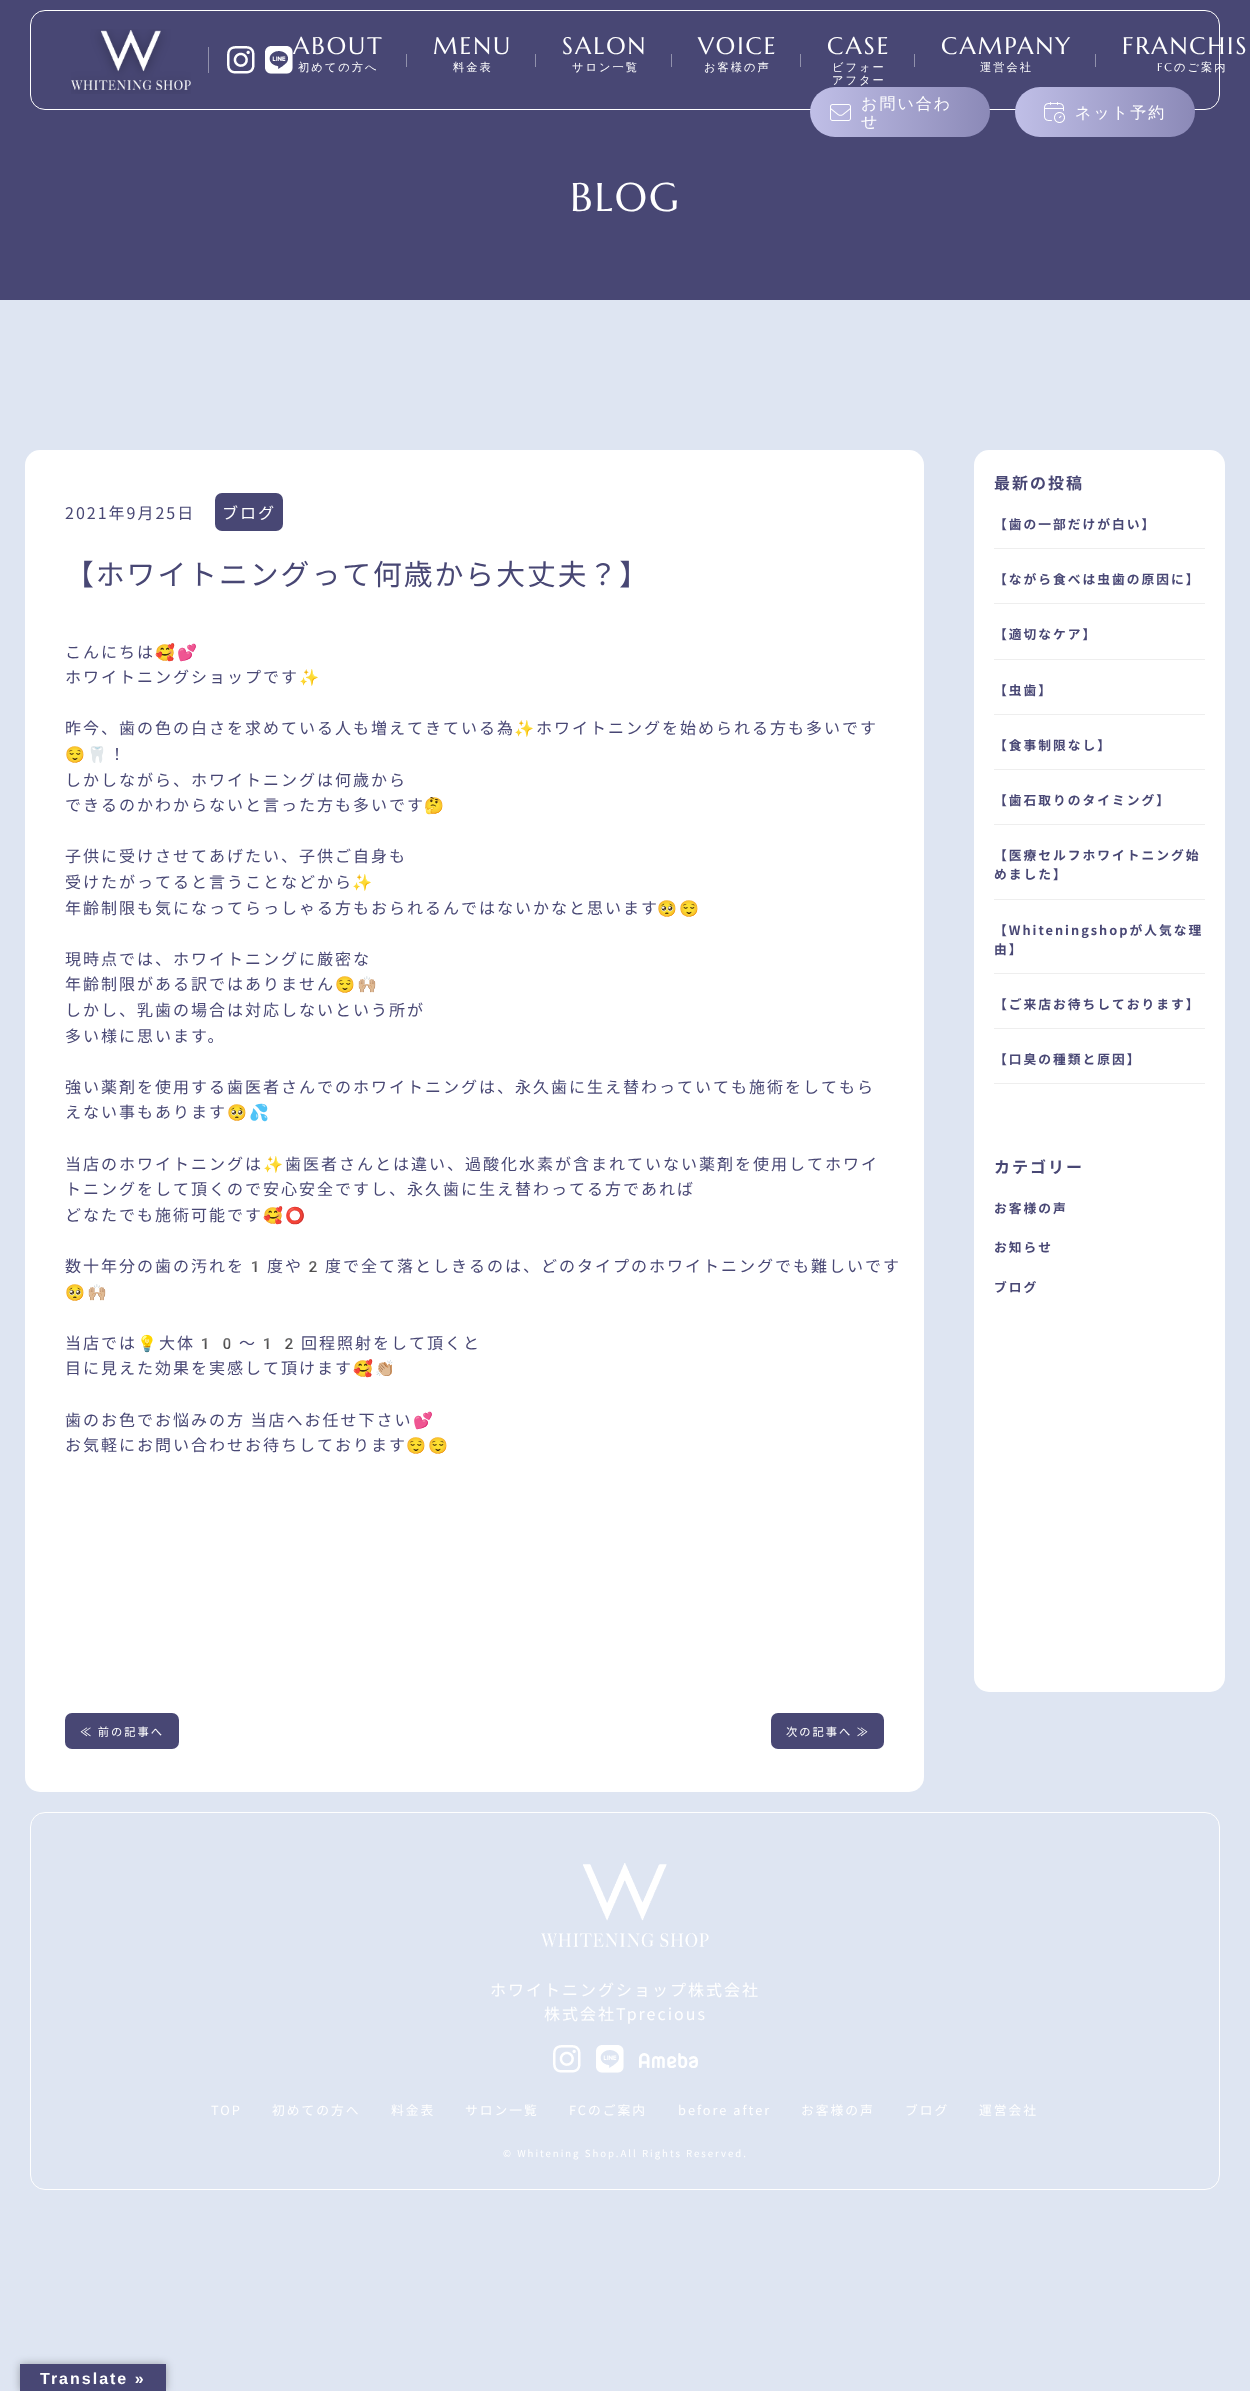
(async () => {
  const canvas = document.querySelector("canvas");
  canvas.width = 1250;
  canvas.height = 2391;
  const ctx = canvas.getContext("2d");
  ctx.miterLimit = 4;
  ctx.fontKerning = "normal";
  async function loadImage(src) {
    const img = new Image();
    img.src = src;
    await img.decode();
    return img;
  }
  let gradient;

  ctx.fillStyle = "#dee5f2";
  ctx.fillRect(0, 0, 1250, 2391);
  ctx.fillStyle = "#484774";
  ctx.fillRect(0, 0, 1250, 300);
  ctx.beginPath();
  ctx.roundRect(30.5, 10.5, 1189, 99, 14.5);
  ctx.strokeStyle = "#ffffff";
  ctx.stroke();
  ctx.drawImage(await loadImage("img/1.png"), 71, 29, 120, 65);
  ctx.fillStyle = "#9191ac";
  ctx.fillRect(208, 47, 1, 26);
  ctx.drawImage(await loadImage("img/2.png"), 227, 46, 28, 28);
  ctx.drawImage(await loadImage("img/3.png"), 265, 46, 28, 28);
  for (const [x, y, w, h, color] of [
    [406, 54, 1, 13, "#9191ac"],
    [535, 54, 1, 13, "#9191ac"],
    [671, 54, 1, 13, "#9191ac"],
    [800, 54, 1, 13, "#9191ac"],
    [914, 54, 1, 13, "#9191ac"],
    [1095, 54, 1, 13, "#9191ac"],
  ]) {
    ctx.fillStyle = color;
    ctx.fillRect(x, y, w, h);
  }
  gradient = ctx.createLinearGradient(810, 112, 990, 112);
  gradient.addColorStop(0, "#c0bfe7");
  gradient.addColorStop(1, "#8b89b7");
  ctx.fillStyle = gradient;
  ctx.beginPath();
  ctx.roundRect(810, 87, 180, 50, 25);
  ctx.fill();
  ctx.drawImage(await loadImage("img/4.png"), 830, 104, 21, 17);
  gradient = ctx.createLinearGradient(1015, 112, 1195, 112);
  gradient.addColorStop(0, "#c0bfe7");
  gradient.addColorStop(1, "#8b89b7");
  ctx.fillStyle = gradient;
  ctx.beginPath();
  ctx.roundRect(1015, 87, 180, 50, 25);
  ctx.fill();
  ctx.drawImage(await loadImage("img/5.png"), 1044, 102, 21, 21);
  ctx.fillStyle = "#ffffff";
  ctx.beginPath();
  ctx.roundRect(25, 450, 899, 1342, 15);
  ctx.fill();
  ctx.fillStyle = "#484774";
  ctx.beginPath();
  ctx.roundRect(215, 493, 68, 38, 7);
  ctx.fill();
  ctx.beginPath();
  ctx.roundRect(65, 1713, 114, 36, 7);
  ctx.fill();
  ctx.beginPath();
  ctx.roundRect(771, 1713, 113, 36, 7);
  ctx.fill();
  ctx.fillStyle = "#ffffff";
  ctx.beginPath();
  ctx.roundRect(974, 450, 251, 1242, 15);
  ctx.fill();
  for (const [x, y, w, h, color] of [
    [994, 548, 211, 1, "#eeeeee"],
    [994, 603, 211, 1, "#eeeeee"],
    [994, 659, 211, 1, "#eeeeee"],
    [994, 714, 211, 1, "#eeeeee"],
    [994, 769, 211, 1, "#eeeeee"],
    [994, 824, 211, 1, "#eeeeee"],
    [994, 899, 211, 1, "#eeeeee"],
    [994, 973, 211, 1, "#eeeeee"],
    [994, 1028, 211, 1, "#eeeeee"],
    [994, 1083, 211, 1, "#eeeeee"],
  ]) {
    ctx.fillStyle = color;
    ctx.fillRect(x, y, w, h);
  }
  ctx.beginPath();
  ctx.roundRect(30.5, 1812.5, 1189, 377, 14.5);
  ctx.stroke();
  ctx.drawImage(await loadImage("img/6.png"), 541, 1863, 168, 84);
  ctx.drawImage(await loadImage("img/7.png"), 553, 2045, 28, 28);
  ctx.drawImage(await loadImage("img/8.png"), 596, 2045, 28, 28);
  ctx.drawImage(await loadImage("img/9.png"), 639, 2053, 59, 15);
  ctx.fillStyle = "rgba(0, 0, 0, 0.3)";
  ctx.filter = "blur(4.5px)";
  ctx.beginPath();
  ctx.rect(20, 2364, 146, 27);
  ctx.fill();
  ctx.filter = "none";
  ctx.fillStyle = "#484774";
  ctx.fillRect(20, 2364, 146, 27);
  ctx.letterSpacing = "2px";
  ctx.font = "24px Marcellus";
  ctx.fillStyle = "#ffffff";
  ctx.fillText("ABOUT", 293, 54);
  ctx.font = "500 11.25px WenQuanYi Zen Hei";
  ctx.fillText("初めての方へ", 298, 71);
  ctx.font = "24px Marcellus";
  ctx.fillText("MENU", 433, 54);
  ctx.font = "500 11.25px WenQuanYi Zen Hei";
  ctx.fillText("料金表", 453, 71);
  ctx.font = "24px Marcellus";
  ctx.fillText("SALON", 562, 54);
  ctx.font = "500 11.25px WenQuanYi Zen Hei";
  ctx.fillText("サロン一覧", 572, 71);
  ctx.font = "24px Marcellus";
  ctx.fillText("VOICE", 698, 54);
  ctx.font = "500 11.25px WenQuanYi Zen Hei";
  ctx.fillText("お客様の声", 704, 71);
  ctx.font = "24px Marcellus";
  ctx.fillText("CASE", 827, 54);
  ctx.font = "500 11.25px WenQuanYi Zen Hei";
  ctx.fillText("ビフォー", 832, 71);
  ctx.fillText("アフター", 832, 84);
  ctx.font = "24px Marcellus";
  ctx.fillText("CAMPANY", 941, 54);
  ctx.font = "500 11.25px WenQuanYi Zen Hei";
  ctx.fillText("運営会社", 980, 71);
  ctx.font = "24px Marcellus";
  ctx.fillText("FRANCHIS", 1122, 54);
  ctx.font = "11.25px Marcellus";
  ctx.fillText("FC", 1157, 71);
  ctx.font = "500 11.25px WenQuanYi Zen Hei";
  ctx.fillText("のご案内", 1174, 71);
  ctx.font = "500 16px WenQuanYi Zen Hei";
  for (const [text, x, y] of [
    ["お問い合わ", 861, 109],
    ["せ", 861, 127],
    ["ネット予約", 1075, 118],
  ]) {
    ctx.fillText(text, x, y);
  }
  ctx.font = "40px Marcellus";
  ctx.fillText("BLOG", 570, 211);
  ctx.font = "16px Noto Sans JP";
  ctx.fillStyle = "#484774";
  ctx.fillText("2021年9月25日", 65, 519);
  ctx.fillStyle = "#ffffff";
  ctx.fillText("ブログ", 222, 519);
  ctx.font = "28.8px Noto Sans JP";
  ctx.fillStyle = "#484774";
  ctx.fillText("【ホワイトニングって何歳から大丈夫？】", 65, 585);
  ctx.font = "16px Noto Sans JP";
  ctx.fillText("こんにちは", 65, 658);
  ctx.font = "16px Noto Color Emoji";
  ctx.fillText("🥰💕", 155, 658);
  ctx.font = "16px Noto Sans JP";
  ctx.fillText("ホワイトニングショップです", 65, 683);
  ctx.font = "16px Noto Color Emoji";
  ctx.fillText("✨", 299, 683);
  ctx.font = "16px Noto Sans JP";
  ctx.fillText("昨今、歯の色の白さを求めている人も増えてきている為", 65, 734);
  ctx.font = "16px Noto Color Emoji";
  ctx.fillText("✨", 514, 734);
  ctx.font = "16px Noto Sans JP";
  ctx.fillText("ホワイトニングを始められる方も多いです", 536, 734);
  ctx.font = "16px Noto Color Emoji";
  ctx.fillText("😌🦷", 65, 760);
  ctx.font = "16px Noto Sans JP";
  for (const [text, x, y] of [
    ["！", 109, 760],
    ["しかしながら、ホワイトニングは何歳から", 65, 786],
    ["できるのかわからないと言った方も多いです", 65, 811],
  ]) {
    ctx.fillText(text, x, y);
  }
  ctx.font = "16px Noto Color Emoji";
  ctx.fillText("🤔", 424, 811);
  ctx.font = "16px Noto Sans JP";
  ctx.fillText("子供に受けさせてあげたい、子供ご自身も", 65, 862);
  ctx.fillText("受けたがってると言うことなどから", 65, 888);
  ctx.font = "16px Noto Color Emoji";
  ctx.fillText("✨", 352, 888);
  ctx.font = "16px Noto Sans JP";
  ctx.fillText("年齢制限も気になってらっしゃる方もおられるんではないかなと思います", 65, 914);
  ctx.font = "16px Noto Color Emoji";
  ctx.fillText("🥺😌", 657, 914);
  ctx.font = "16px Noto Sans JP";
  ctx.fillText("現時点では、ホワイトニングに厳密な", 65, 965);
  ctx.fillText("年齢制限がある訳ではありません", 65, 990);
  ctx.font = "16px Noto Color Emoji";
  ctx.fillText("😌🙌🏼", 335, 990);
  ctx.font = "16px Noto Sans JP";
  for (const [text, x, y] of [
    ["しかし、乳歯の場合は対応しないという所が", 65, 1016],
    ["多い様に思います。", 65, 1042],
    ["強い薬剤を使用する歯医者さんでのホワイトニングは、永久歯に生え替わっていても施術をしてもら", 65, 1093],
    ["えない事もあります", 65, 1118],
  ]) {
    ctx.fillText(text, x, y);
  }
  ctx.font = "16px Noto Color Emoji";
  ctx.fillText("🥺💦", 227, 1118);
  ctx.font = "16px Noto Sans JP";
  ctx.fillText("当店のホワイトニングは", 65, 1170);
  ctx.font = "16px Noto Color Emoji";
  ctx.fillText("✨", 263, 1170);
  ctx.font = "16px Noto Sans JP";
  for (const [text, x, y] of [
    ["歯医者さんとは違い、過酸化水素が含まれていない薬剤を使用してホワイ", 285, 1170],
    ["トニングをして頂くので安心安全ですし、永久歯に生え替わってる方であれば", 65, 1195],
    ["どなたでも施術可能です", 65, 1221],
  ]) {
    ctx.fillText(text, x, y);
  }
  ctx.font = "16px Noto Color Emoji";
  ctx.fillText("🥰⭕️", 263, 1221);
  ctx.font = "16px Noto Sans JP";
  ctx.fillText("数十年分の歯の汚れを", 65, 1272);
  ctx.font = "16px Noto Color Emoji";
  ctx.fillText("1", 245, 1272);
  ctx.font = "16px Noto Sans JP";
  ctx.fillText("度や", 267, 1272);
  ctx.font = "16px Noto Color Emoji";
  ctx.fillText("2", 303, 1272);
  ctx.font = "16px Noto Sans JP";
  ctx.fillText("度で全て落としきるのは、どのタイプのホワイトニングでも難しいです", 325, 1272);
  ctx.font = "16px Noto Color Emoji";
  ctx.fillText("🥺🙌🏼", 65, 1298);
  ctx.font = "16px Noto Sans JP";
  ctx.fillText("当店では", 65, 1349);
  ctx.font = "16px Noto Color Emoji";
  ctx.fillText("💡", 137, 1349);
  ctx.font = "16px Noto Sans JP";
  ctx.fillText("大体", 159, 1349);
  ctx.font = "16px Noto Color Emoji";
  ctx.fillText("10", 195, 1349);
  ctx.font = "16px Noto Sans JP";
  ctx.fillText("〜", 239, 1349);
  ctx.font = "16px Noto Color Emoji";
  ctx.fillText("12", 257, 1349);
  ctx.font = "16px Noto Sans JP";
  ctx.fillText("回程照射をして頂くと", 301, 1349);
  ctx.fillText("目に見えた効果を実感して頂けます", 65, 1374);
  ctx.font = "16px Noto Color Emoji";
  ctx.fillText("🥰👏🏼", 353, 1374);
  ctx.font = "16px Noto Sans JP";
  ctx.fillText("歯のお色でお悩みの方 当店へお任せ下さい", 65, 1426);
  ctx.font = "16px Noto Color Emoji";
  ctx.fillText("💕", 413, 1426);
  ctx.font = "16px Noto Sans JP";
  ctx.fillText("お気軽にお問い合わせお待ちしております", 65, 1451);
  ctx.font = "16px Noto Color Emoji";
  ctx.fillText("😌😌", 406, 1451);
  ctx.font = "11.25px Noto Sans JP";
  ctx.fillStyle = "#ffffff";
  ctx.fillText("≪ 前の記事へ", 80, 1736);
  ctx.fillText("次の記事へ ≫", 786, 1736);
  ctx.font = "bold 16px Noto Sans JP";
  ctx.fillStyle = "#484774";
  ctx.fillText("最新の投稿", 994, 489);
  ctx.font = "bold 12.75px Noto Sans JP";
  for (const [text, x, y] of [
    ["【歯の一部だけが白い】", 994, 529],
    ["【ながら食べは虫歯の原因に】", 994, 584],
    ["【適切なケア】", 994, 639],
    ["【虫歯】", 994, 695],
    ["【食事制限なし】", 994, 750],
    ["【歯石取りのタイミング】", 994, 805],
    ["【医療セルフホワイトニング始", 994, 860],
    ["めました】", 994, 879],
    ["【Whiteningshopが人気な理", 994, 935],
    ["由】", 994, 954],
    ["【ご来店お待ちしております】", 994, 1009],
    ["【口臭の種類と原因】", 994, 1064],
  ]) {
    ctx.fillText(text, x, y);
  }
  ctx.font = "bold 16px Noto Sans JP";
  ctx.fillText("カテゴリー", 994, 1173);
  ctx.font = "bold 12.75px Noto Sans JP";
  for (const [text, x, y] of [
    ["お客様の声", 994, 1213],
    ["お知らせ", 994, 1252],
    ["ブログ", 994, 1292],
  ]) {
    ctx.fillText(text, x, y);
  }
  ctx.font = "16px Noto Sans JP";
  ctx.fillStyle = "#ffffff";
  ctx.fillText("ホワイトニングショップ株式会社", 490, 1996);
  ctx.fillText("株式会社Tprecious", 544, 2020);
  ctx.font = "12.75px Noto Sans JP";
  for (const [text, x, y] of [
    ["TOP", 211, 2115],
    ["初めての方へ", 272, 2115],
    ["料金表", 391, 2115],
    ["サロン一覧", 465, 2115],
    ["FCのご案内", 569, 2115],
    ["before after", 678, 2115],
    ["お客様の声", 801, 2115],
    ["ブログ", 905, 2115],
    ["運営会社", 979, 2115],
  ]) {
    ctx.fillText(text, x, y);
  }
  ctx.font = "9.6px Noto Sans JP";
  ctx.fillText("© Whitening Shop.All Rights Reserved.", 503, 2157);
  ctx.font = "bold 16px Liberation Sans";
  ctx.fillText("Translate »", 40, 2384);
})();
